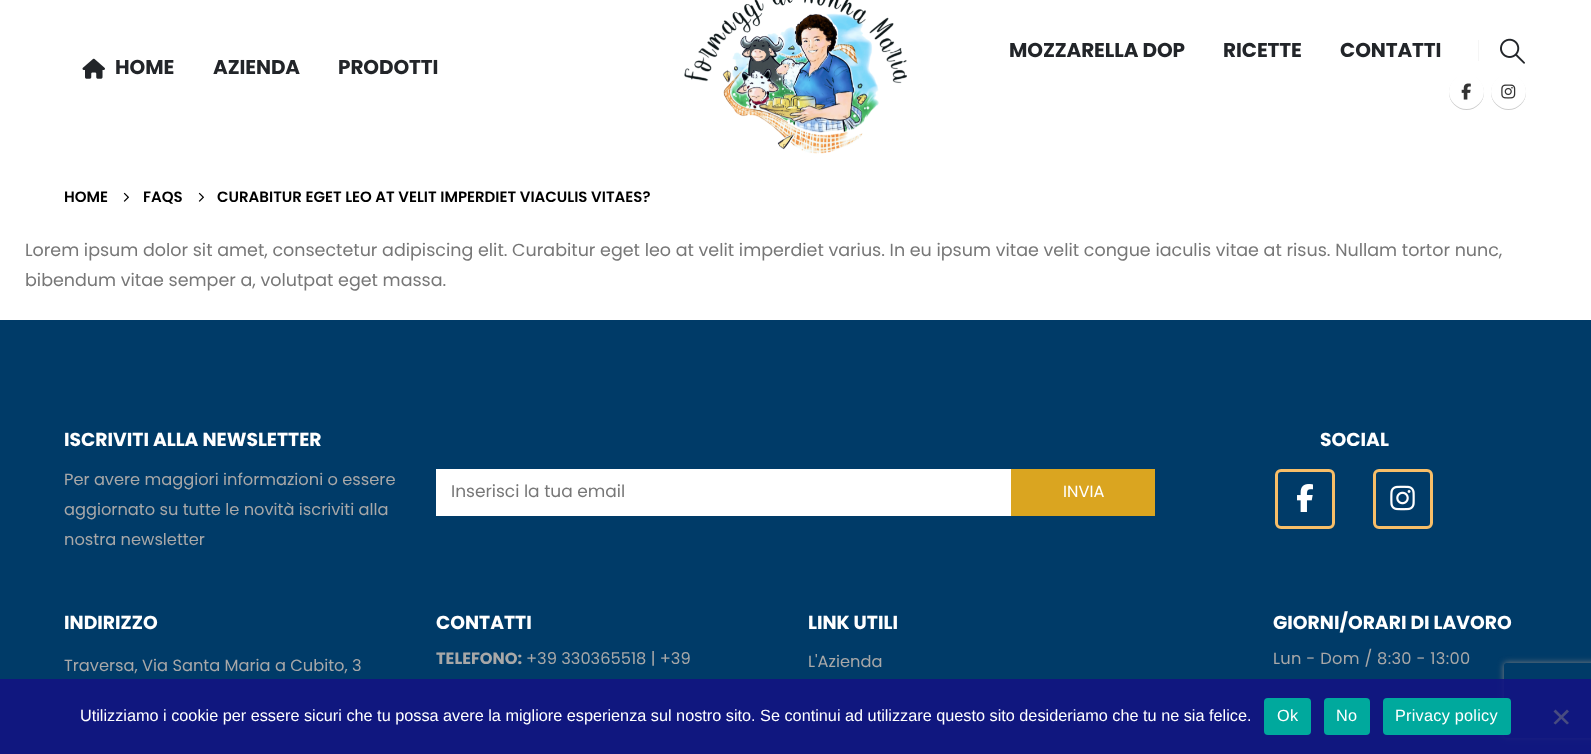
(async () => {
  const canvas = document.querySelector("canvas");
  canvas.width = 1591;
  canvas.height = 754;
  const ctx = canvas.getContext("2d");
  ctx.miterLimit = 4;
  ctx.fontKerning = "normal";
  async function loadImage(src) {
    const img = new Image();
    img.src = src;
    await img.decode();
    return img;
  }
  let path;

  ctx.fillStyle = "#ffffff";
  ctx.fillRect(0, 0, 1591, 754);
  ctx.drawImage(await loadImage("img/1.png"), 684, 0, 223, 154);
  ctx.fillStyle = "#f5f5f5";
  ctx.fillRect(1478, 40, 1, 21);
  ctx.drawImage(await loadImage("img/2.png"), 1500, 38, 25, 26);
  ctx.fillStyle = "rgba(0, 0, 0, 0.2)";
  ctx.filter = "blur(0.5px)";
  ctx.beginPath();
  ctx.roundRect(1449, 75, 35, 35, 17.5);
  ctx.fill();
  ctx.filter = "none";
  ctx.fillStyle = "#ffffff";
  ctx.beginPath();
  ctx.arc(1466.5, 91.5, 17.5, 0, Math.PI * 2);
  ctx.fill();
  ctx.drawImage(await loadImage("img/3.png"), 1461, 83, 10, 17);
  ctx.fillStyle = "rgba(0, 0, 0, 0.2)";
  ctx.filter = "blur(0.5px)";
  ctx.beginPath();
  ctx.roundRect(1491, 75, 35, 35, 17.5);
  ctx.fill();
  ctx.filter = "none";
  ctx.fillStyle = "#ffffff";
  ctx.beginPath();
  ctx.arc(1508.5, 91.5, 17.5, 0, Math.PI * 2);
  ctx.fill();
  ctx.drawImage(await loadImage("img/4.png"), 1501, 84, 15, 15);
  ctx.drawImage(await loadImage("img/5.png"), 82, 58, 23, 21);
  ctx.drawImage(await loadImage("img/6.png"), 123, 192, 6, 10);
  ctx.drawImage(await loadImage("img/6.png"), 198, 192, 6, 10);
  for (const [x, y, w, h, color] of [
    [0, 320, 1591, 434, "#003b68"],
    [436, 469, 575, 47, "#ffffff"],
    [1011, 469, 144, 47, "#daa520"],
  ]) {
    ctx.fillStyle = color;
    ctx.fillRect(x, y, w, h);
  }
  ctx.beginPath();
  ctx.roundRect(1276.5, 470.5, 57, 57, 4.5);
  ctx.strokeStyle = "#f7be68";
  ctx.lineWidth = 3;
  ctx.stroke();
  ctx.drawImage(await loadImage("img/7.png"), 1297, 484, 16, 28);
  ctx.beginPath();
  ctx.roundRect(1374.5, 470.5, 57, 57, 4.5);
  ctx.stroke();
  ctx.drawImage(await loadImage("img/8.png"), 1390, 485, 25, 26);
  ctx.save();
  path = new Path2D("M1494 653H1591V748H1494ZM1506.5 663H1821.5C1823 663 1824 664 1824 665.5V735.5C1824 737 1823 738 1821.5 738H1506.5C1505 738 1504 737 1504 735.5V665.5C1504 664 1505 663 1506.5 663Z");
  ctx.clip(path, "evenodd");
  ctx.fillStyle = "#808080";
  ctx.filter = "blur(3px)";
  ctx.beginPath();
  ctx.roundRect(1504, 663, 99, 75, 2.5);
  ctx.fill();
  ctx.filter = "none";
  ctx.restore();
  ctx.fillStyle = "rgba(18, 20, 130, 0.9)";
  ctx.fillRect(0, 679, 1591, 75);
  ctx.fillStyle = "#00a99d";
  ctx.beginPath();
  ctx.roundRect(1264, 698, 47, 37, 4);
  ctx.fill();
  ctx.beginPath();
  ctx.roundRect(1324, 698, 46, 37, 4);
  ctx.fill();
  ctx.beginPath();
  ctx.roundRect(1383, 698, 128, 37, 4);
  ctx.fill();
  ctx.fillStyle = "#484c80";
  path = new Path2D("M1567 709.5L1569 711.5L1555.5 724.5L1553.5 723Z");
  ctx.fill(path);
  path = new Path2D("M1553.5 711.5L1555.5 709.5L1569 723L1567 724.5Z");
  ctx.fill(path);
  ctx.letterSpacing = "-0.1px";
  ctx.font = "bold 20px Poppins";
  ctx.fillStyle = "#222529";
  for (const [text, x, y] of [
    ["MOZZARELLA DOP", 1009, 57],
    ["RICETTE", 1223, 57],
    ["CONTATTI", 1340, 57],
    ["HOME", 115, 74],
    ["AZIENDA", 213, 74],
    ["PRODOTTI", 338, 74],
  ]) {
    ctx.fillText(text, x, y);
  }
  ctx.letterSpacing = "0px";
  ctx.font = "600 15px Poppins";
  ctx.fillStyle = "#000000";
  for (const [text, x, y] of [
    ["HOME", 64, 202],
    ["FAQS", 143, 202],
    ["CURABITUR EGET LEO AT VELIT IMPERDIET VIACULIS VITAES?", 217, 202],
  ]) {
    ctx.fillText(text, x, y);
  }
  ctx.font = "17.5px Poppins";
  ctx.fillStyle = "#777777";
  ctx.fillText("Lorem ipsum dolor sit amet, consectetur adipiscing elit. Curabitur eget leo at velit imperdiet varius. In eu ipsum vitae velit congue iaculis vitae at risus. Nullam tortor nunc,", 25, 256);
  ctx.fillText("bibendum vitae semper a, volutpat eget massa.", 25, 286);
  ctx.font = "bold 18.75px Poppins";
  ctx.fillStyle = "#ffffff";
  ctx.fillText("ISCRIVITI ALLA NEWSLETTER", 64, 446);
  ctx.font = "16.25px Poppins";
  ctx.fillStyle = "#a8a8a8";
  for (const [text, x, y] of [
    ["Per avere maggiori informazioni o essere", 64, 485],
    ["aggiornato su tutte le novità iscriviti alla", 64, 515],
    ["nostra newsletter", 64, 545],
  ]) {
    ctx.fillText(text, x, y);
  }
  ctx.font = "17px Poppins";
  ctx.fillStyle = "#777777";
  ctx.fillText("Inserisci la tua email", 451, 497);
  ctx.font = "16.25px Poppins";
  ctx.fillStyle = "#ffffff";
  ctx.fillText("INVIA", 1063, 497);
  ctx.font = "bold 18.75px Poppins";
  ctx.fillText("SOCIAL", 1320, 446);
  ctx.fillText("INDIRIZZO", 64, 629);
  ctx.font = "16.25px Poppins";
  ctx.fillStyle = "#a8a8a8";
  ctx.fillText("Traversa, Via Santa Maria a Cubito, 3", 64, 671);
  ctx.font = "bold 18.75px Poppins";
  ctx.fillStyle = "#ffffff";
  ctx.fillText("CONTATTI", 436, 629);
  ctx.font = "bold 16.25px Poppins";
  ctx.fillStyle = "#a8a8a8";
  ctx.fillText("TELEFONO:", 436, 664);
  ctx.font = "16.25px Poppins";
  ctx.fillText("+39 330365518 | +39", 526, 664);
  ctx.font = "bold 18.75px Poppins";
  ctx.fillStyle = "#ffffff";
  ctx.fillText("LINK UTILI", 808, 629);
  ctx.font = "16.25px Poppins";
  ctx.fillStyle = "#a8a8a8";
  ctx.fillText("L'Azienda", 808, 667);
  ctx.font = "bold 18.75px Poppins";
  ctx.fillStyle = "#ffffff";
  ctx.fillText("GIORNI/ORARI DI LAVORO", 1273, 629);
  ctx.letterSpacing = "0.3px";
  ctx.font = "16.25px Poppins";
  ctx.fillStyle = "#a8a8a8";
  ctx.fillText("Lun - Dom / 8:30 - 13:00", 1273, 664);
  ctx.letterSpacing = "0px";
  ctx.font = "16.25px Liberation Sans";
  ctx.fillStyle = "#ffffff";
  ctx.fillText("Utilizziamo i cookie per essere sicuri che tu possa avere la migliore esperienza sul nostro sito. Se continui ad utilizzare questo sito desideriamo che tu ne sia felice.", 80, 721);
  ctx.letterSpacing = "0.25px";
  for (const [text, x, y] of [
    ["Ok", 1277, 721],
    ["No", 1336, 721],
    ["Privacy policy", 1395, 721],
  ]) {
    ctx.fillText(text, x, y);
  }
})();
